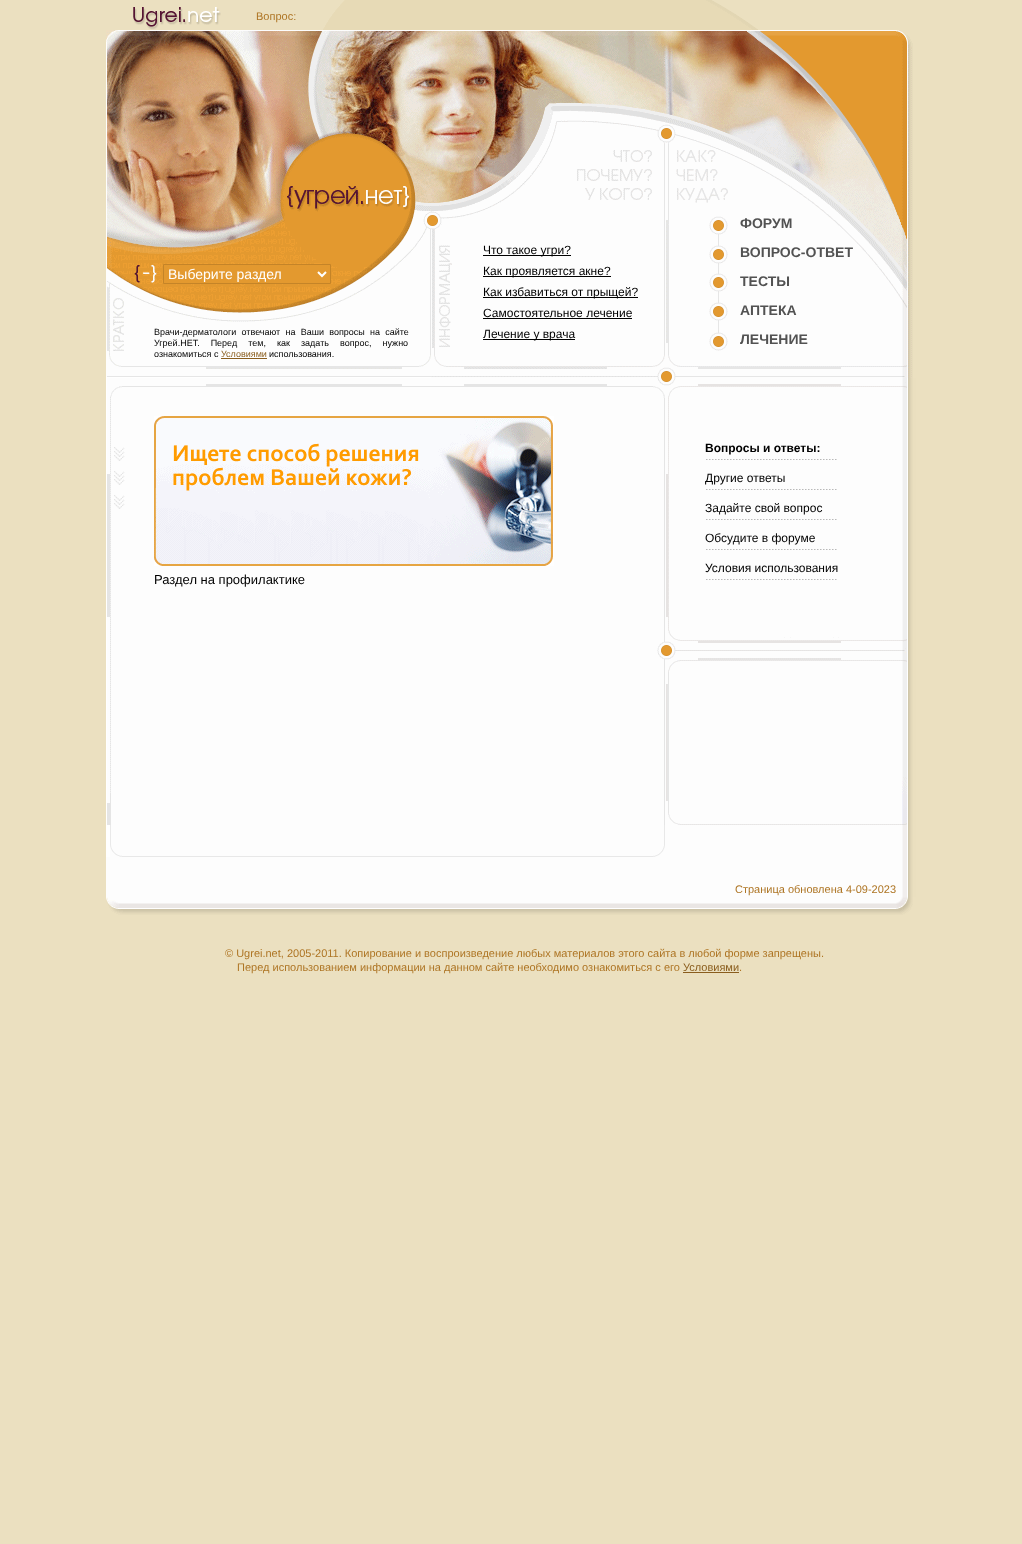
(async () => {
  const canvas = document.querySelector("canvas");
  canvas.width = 1022;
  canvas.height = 1544;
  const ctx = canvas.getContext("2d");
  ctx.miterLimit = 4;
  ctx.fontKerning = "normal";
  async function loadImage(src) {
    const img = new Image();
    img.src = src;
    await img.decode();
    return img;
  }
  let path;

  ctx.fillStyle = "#ebe0c0";
  ctx.fillRect(0, 0, 1022, 1544);
  ctx.drawImage(await loadImage("img/1.png"), 133, 7, 88, 23);
  ctx.drawImage(await loadImage("img/2.png"), 323, 0, 435, 30);
  ctx.fillStyle = "#ffffff";
  ctx.fillRect(106, 30, 559, 827);
  ctx.drawImage(await loadImage("img/3.png"), 106, 30, 325, 347);
  ctx.fillStyle = "#e3992f";
  ctx.beginPath();
  ctx.rect(163.5, 264.5, 167, 19);
  ctx.fill();
  ctx.strokeStyle = "#c48428";
  ctx.stroke();
  path = new Path2D("M318 272L322 276L326 272");
  ctx.strokeStyle = "#ffffff";
  ctx.lineWidth = 2;
  ctx.stroke(path);
  ctx.fillStyle = "#8a5d1d";
  ctx.fillRect(221, 358, 46, 1);
  ctx.drawImage(await loadImage("img/4.png"), 431, 31, 234, 347);
  for (const [x, y, w, h, color] of [
    [483, 255, 88, 1, "#000000"],
    [483, 276, 128, 1, "#000000"],
    [483, 297, 155, 1, "#000000"],
    [483, 318, 149, 1, "#000000"],
    [483, 339, 92, 1, "#000000"],
  ]) {
    ctx.fillStyle = color;
    ctx.fillRect(x, y, w, h);
  }
  ctx.drawImage(await loadImage("img/5.png"), 665, 30, 251, 348);
  ctx.drawImage(await loadImage("img/6.png"), 907, 378, 9, 447);
  ctx.drawImage(await loadImage("img/7.png"), 665, 378, 242, 266);
  ctx.drawImage(await loadImage("img/8.png"), 706, 459, 131, 1);
  ctx.drawImage(await loadImage("img/8.png"), 706, 489, 131, 1);
  ctx.drawImage(await loadImage("img/8.png"), 706, 519, 131, 1);
  ctx.drawImage(await loadImage("img/8.png"), 706, 549, 131, 1);
  ctx.drawImage(await loadImage("img/8.png"), 706, 579, 131, 1);
  ctx.drawImage(await loadImage("img/9.png"), 665, 644, 242, 181);
  ctx.drawImage(await loadImage("img/10.png"), 107, 793, 558, 32);
  ctx.drawImage(await loadImage("img/11.png"), 107, 378, 558, 415);
  ctx.drawImage(await loadImage("img/12.png"), 154, 416, 400, 150);
  ctx.drawImage(await loadImage("img/13.png"), 110, 825, 555, 32);
  ctx.fillStyle = "#fdfdfd";
  ctx.fillRect(665, 825, 237, 32);
  ctx.drawImage(await loadImage("img/14.png"), 902, 825, 14, 32);
  ctx.fillRect(106, 857, 796, 40);
  ctx.drawImage(await loadImage("img/15.png"), 902, 857, 14, 40);
  ctx.drawImage(await loadImage("img/16.png"), 106, 897, 807, 18);
  ctx.fillStyle = "#8a5d1d";
  ctx.fillRect(683, 972, 56, 1);
  ctx.font = "11px Liberation Sans";
  ctx.fillStyle = "#ae7524";
  ctx.fillText("Вопрос:", 256, 20);
  ctx.font = "14px Liberation Sans";
  ctx.fillStyle = "#ffffff";
  ctx.fillText("Выберите раздел", 168, 279);
  ctx.wordSpacing = "2.75px";
  ctx.font = "9px Liberation Sans";
  ctx.fillStyle = "#000000";
  ctx.fillText("Врачи-дерматологи отвечают на Ваши вопросы на сайте", 154, 335);
  ctx.wordSpacing = "8.5px";
  ctx.fillText("Угрей.НЕТ. Перед тем, как задать вопрос, нужно", 154, 346);
  ctx.wordSpacing = "0px";
  ctx.fillText("ознакомиться с", 154, 357);
  ctx.fillStyle = "#8a5d1d";
  ctx.fillText("Условиями", 221, 357);
  ctx.fillStyle = "#000000";
  ctx.fillText("использования.", 269, 357);
  ctx.font = "12px Liberation Sans";
  for (const [text, x, y] of [
    ["Что такое угри?", 483, 254],
    ["Как проявляется акне?", 483, 275],
    ["Как избавиться от прыщей?", 483, 296],
    ["Самостоятельное лечение", 483, 317],
    ["Лечение у врача", 483, 338],
  ]) {
    ctx.fillText(text, x, y);
  }
  ctx.font = "bold 14px Liberation Sans";
  ctx.fillStyle = "#525252";
  for (const [text, x, y] of [
    ["ФОРУМ", 740, 228],
    ["ВОПРОС-ОТВЕТ", 740, 257],
    ["ТЕСТЫ", 740, 286],
    ["АПТЕКА", 740, 315],
    ["ЛЕЧЕНИЕ", 740, 344],
  ]) {
    ctx.fillText(text, x, y);
  }
  ctx.font = "bold 12px Liberation Sans";
  ctx.fillStyle = "#000000";
  ctx.fillText("Вопросы и ответы:", 705, 452);
  ctx.font = "12px Liberation Sans";
  for (const [text, x, y] of [
    ["Другие ответы", 705, 482],
    ["Задайте свой вопрос", 705, 512],
    ["Обсудите в форуме", 705, 542],
    ["Условия использования", 705, 572],
  ]) {
    ctx.fillText(text, x, y);
  }
  ctx.font = "13px Liberation Sans";
  ctx.fillText("Раздел на профилактике", 154, 584);
  ctx.font = "11px Liberation Sans";
  ctx.fillStyle = "#ae7524";
  for (const [text, x, y] of [
    ["Страница обновлена 4-09-2023", 735, 893],
    ["© Ugrei.net, 2005-2011. Копирование и воспроизведение любых материалов этого сайта в любой форме запрещены.", 225, 957],
    ["Перед использованием информации на данном сайте необходимо ознакомиться с его", 237, 971],
  ]) {
    ctx.fillText(text, x, y);
  }
  ctx.fillStyle = "#8a5d1d";
  ctx.fillText("Условиями", 683, 971);
  ctx.fillStyle = "#ae7524";
  ctx.fillText(".", 739, 971);
})();
